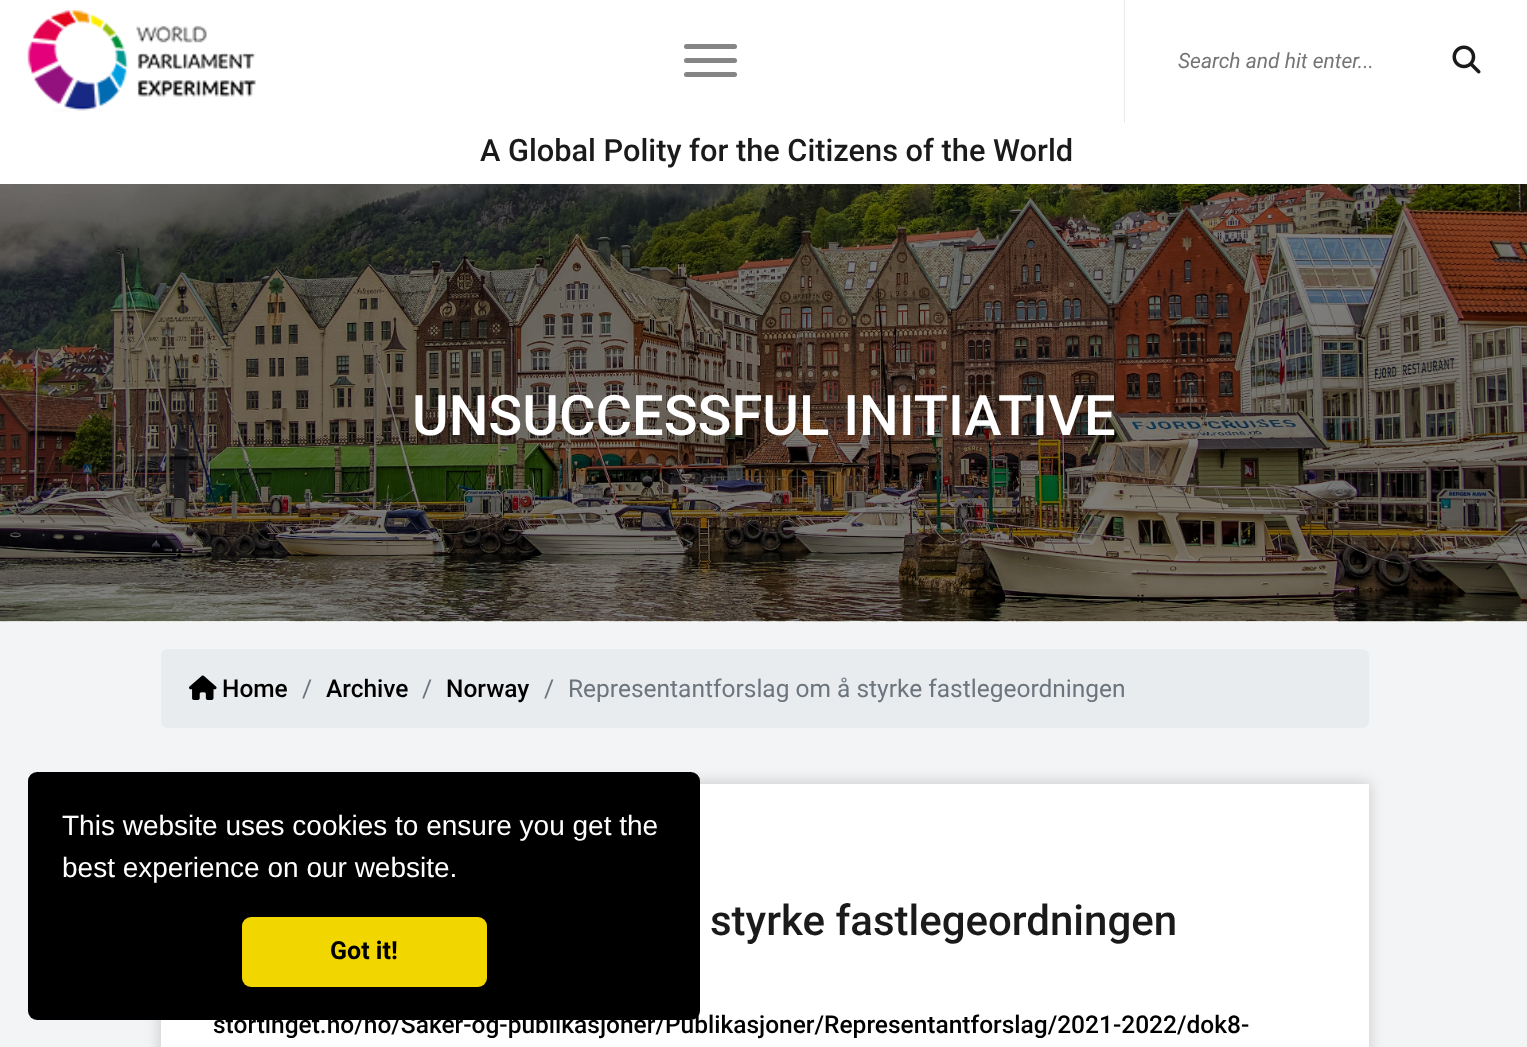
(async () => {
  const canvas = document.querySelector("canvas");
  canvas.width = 1527;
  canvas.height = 1047;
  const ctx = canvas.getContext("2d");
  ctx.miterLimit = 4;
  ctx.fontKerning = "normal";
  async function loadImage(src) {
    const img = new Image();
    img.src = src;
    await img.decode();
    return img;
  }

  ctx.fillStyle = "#f2f4f5";
  ctx.fillRect(0, 0, 1527, 1047);
  ctx.fillStyle = "#ffffff";
  ctx.fillRect(0, 0, 1527, 184);
  ctx.drawImage(await loadImage("img/1.png"), 27, 10, 229, 102);
  ctx.fillStyle = "#858585";
  ctx.beginPath();
  ctx.roundRect(684, 44, 53, 5, 2.5);
  ctx.fill();
  ctx.beginPath();
  ctx.roundRect(684, 58, 53, 5, 2.5);
  ctx.fill();
  ctx.beginPath();
  ctx.roundRect(684, 72, 53, 5, 2.5);
  ctx.fill();
  ctx.fillStyle = "#ebebeb";
  ctx.fillRect(1124, 0, 1, 123);
  ctx.drawImage(await loadImage("img/2.png"), 1452, 45, 29, 29);
  ctx.drawImage(await loadImage("img/3.png"), 0, 184, 1527, 438);
  ctx.fillStyle = "#e9ecef";
  ctx.beginPath();
  ctx.roundRect(161, 649, 1208, 79, 7);
  ctx.fill();
  ctx.drawImage(await loadImage("img/4.png"), 189, 675, 28, 25);
  ctx.fillStyle = "rgba(0, 0, 0, 0.15)";
  ctx.filter = "blur(7px)";
  ctx.beginPath();
  ctx.rect(159, 782, 1211, 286);
  ctx.fill();
  ctx.filter = "none";
  ctx.fillStyle = "#ffffff";
  ctx.fillRect(161, 784, 1208, 263);
  ctx.fillStyle = "#000000";
  ctx.beginPath();
  ctx.roundRect(28, 772, 672, 248, 9);
  ctx.fill();
  ctx.fillStyle = "#f1d600";
  ctx.beginPath();
  ctx.roundRect(242, 917, 245, 70, 9);
  ctx.fill();
  ctx.font = "italic 21px Roboto";
  ctx.fillStyle = "#757575";
  ctx.fillText("Search and hit enter...", 1178, 68);
  ctx.font = "500 30.75px Roboto";
  ctx.fillStyle = "#1a1a1a";
  ctx.fillText("A Global Polity for the Citizens of the World", 480, 161);
  ctx.font = "500 56px Roboto";
  ctx.fillStyle = "#ffffff";
  ctx.fillText("UNSUCCESSFUL INITIATIVE", 412, 435);
  ctx.font = "500 24.5px Roboto";
  ctx.fillStyle = "#000000";
  ctx.fillText("Home", 222, 697);
  ctx.font = "24.5px Roboto";
  ctx.fillStyle = "#6c757d";
  ctx.fillText("/", 302, 697);
  ctx.font = "500 24.5px Roboto";
  ctx.fillStyle = "#000000";
  ctx.fillText("Archive", 326, 697);
  ctx.font = "24.5px Roboto";
  ctx.fillStyle = "#6c757d";
  ctx.fillText("/", 422, 697);
  ctx.font = "500 24.5px Roboto";
  ctx.fillStyle = "#000000";
  ctx.fillText("Norway", 446, 697);
  ctx.font = "24.5px Roboto";
  ctx.fillStyle = "#6c757d";
  ctx.fillText("/", 544, 697);
  ctx.fillText("Representantforslag om å styrke fastlegeordningen", 568, 697);
  ctx.font = "28px Liberation Sans";
  ctx.fillStyle = "#ffffff";
  ctx.fillText("This website uses cookies to ensure you get the", 62, 835);
  ctx.fillText("best experience on our website.", 62, 877);
  ctx.font = "bold 25px Roboto";
  ctx.fillStyle = "#000000";
  ctx.fillText("Got it!", 330, 959);
  ctx.font = "500 42px Roboto";
  ctx.fillStyle = "#1a1a1a";
  ctx.fillText("styrke fastlegeordningen", 710, 935);
  ctx.font = "500 24.5px Roboto";
  ctx.fillStyle = "#000000";
  ctx.fillText("stortinget.no/no/Saker-og-publikasjoner/Publikasjoner/Representantforslag/2021-2022/dok8-", 213, 1033);
})();
